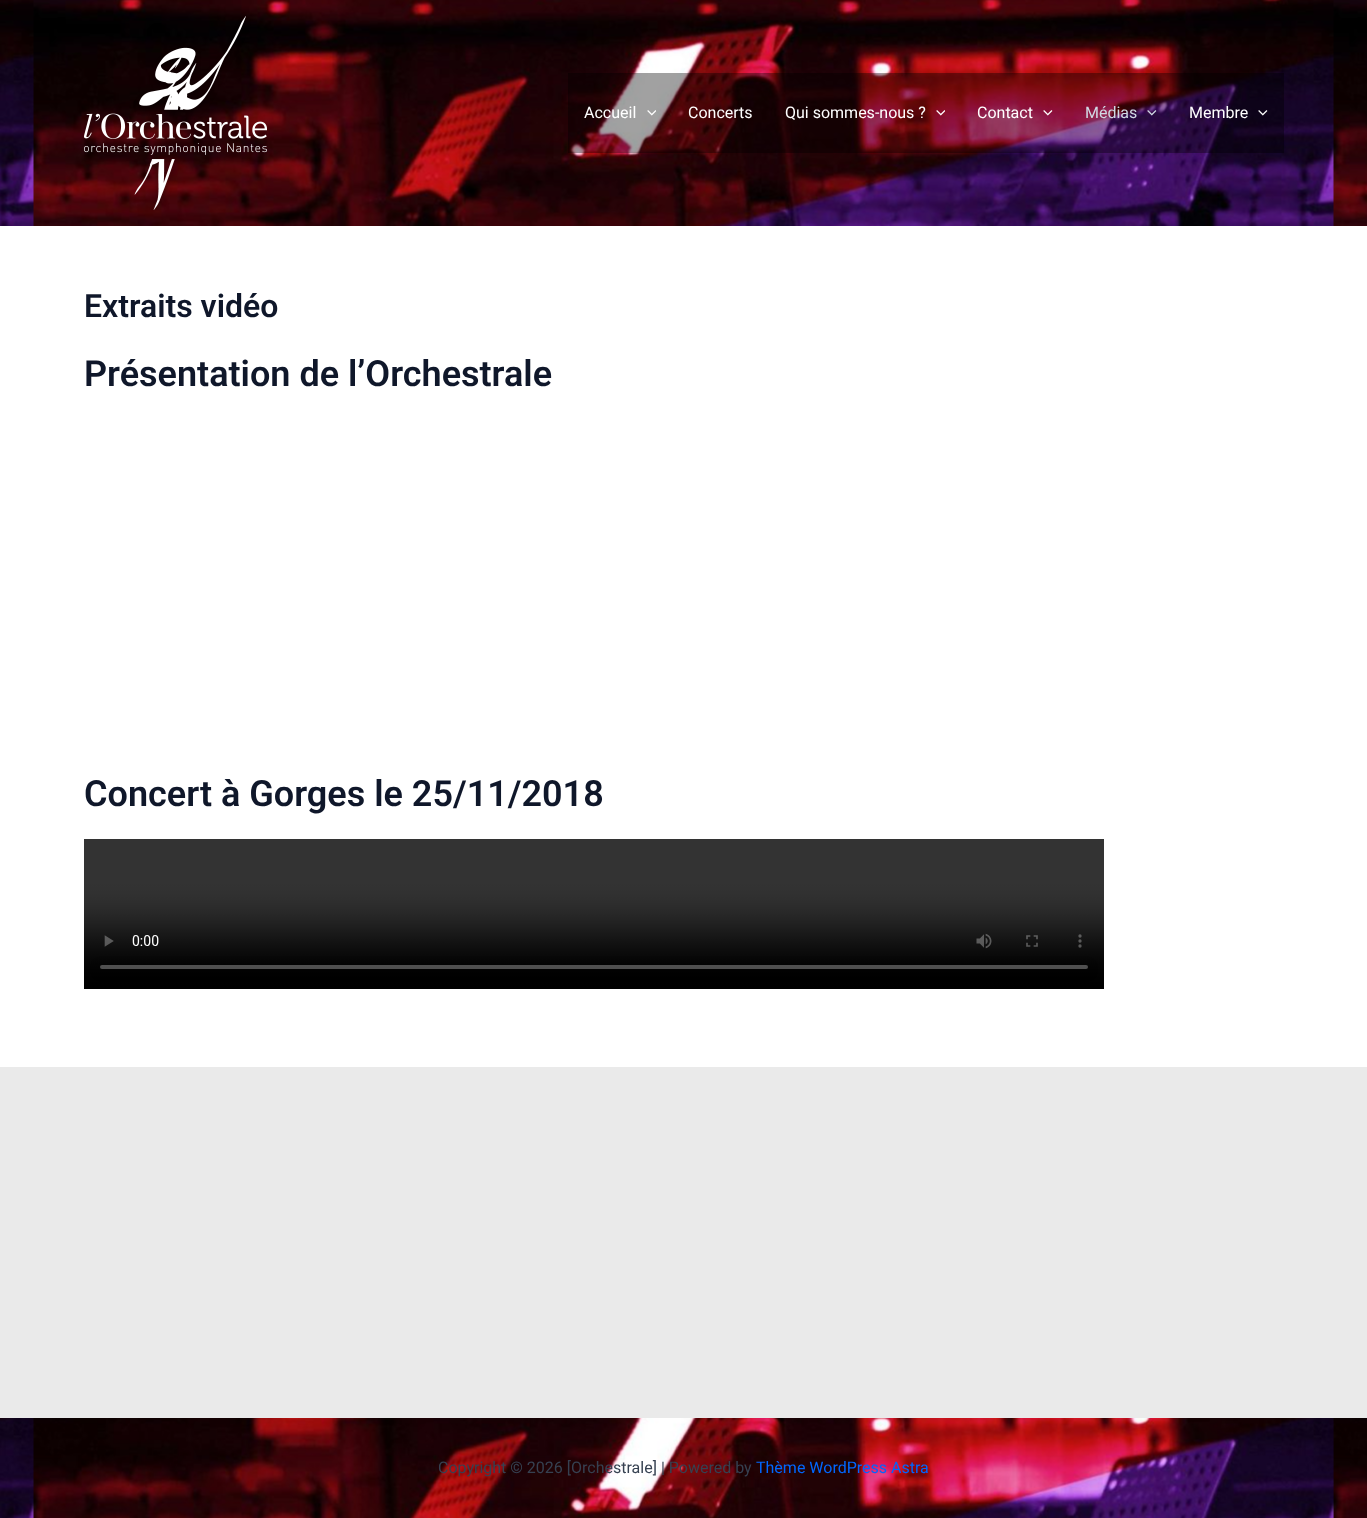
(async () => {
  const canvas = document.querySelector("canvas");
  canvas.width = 1367;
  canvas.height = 1518;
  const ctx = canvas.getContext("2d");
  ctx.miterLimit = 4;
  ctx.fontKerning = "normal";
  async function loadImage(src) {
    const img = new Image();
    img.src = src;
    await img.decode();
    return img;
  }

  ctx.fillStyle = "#ffffff";
  ctx.fillRect(0, 0, 1367, 1518);
  ctx.drawImage(await loadImage("img/1.png"), 0, 0, 1367, 226);
  ctx.drawImage(await loadImage("img/2.png"), 84, 16, 183, 194);
  ctx.fillStyle = "rgba(0, 0, 0, 0.37)";
  ctx.fillRect(568, 73, 716, 80);
  ctx.drawImage(await loadImage("img/3.png"), 647, 110, 9, 6);
  ctx.drawImage(await loadImage("img/4.png"), 936, 110, 9, 6);
  ctx.drawImage(await loadImage("img/5.png"), 1043, 110, 10, 6);
  ctx.drawImage(await loadImage("img/6.png"), 1147, 110, 10, 6);
  ctx.drawImage(await loadImage("img/7.png"), 1258, 110, 10, 6);
  ctx.drawImage(await loadImage("img/8.png"), 84, 839, 1020, 150);
  ctx.drawImage(await loadImage("img/9.png"), 0, 1418, 1367, 100);
  ctx.fillStyle = "#eaeaea";
  ctx.fillRect(0, 1067, 1367, 351);
  ctx.font = "16px Roboto";
  ctx.fillStyle = "#ffffff";
  for (const [text, x, y] of [
    ["Accueil", 584, 118],
    ["Concerts", 688, 118],
    ["Qui sommes-nous ?", 785, 118],
    ["Contact", 977, 118],
  ]) {
    ctx.fillText(text, x, y);
  }
  ctx.fillStyle = "#d1dae5";
  ctx.fillText("Médias", 1085, 118);
  ctx.fillStyle = "#ffffff";
  ctx.fillText("Membre", 1189, 118);
  ctx.font = "600 32px Roboto";
  ctx.fillStyle = "#0f172a";
  ctx.fillText("Extraits vidéo", 84, 317);
  ctx.font = "600 36px Roboto";
  ctx.fillText("Présentation de l’Orchestrale", 84, 386);
  ctx.fillText("Concert à Gorges le 25/11/2018", 84, 806);
  ctx.font = "16px Roboto";
  ctx.fillStyle = "#364151";
  ctx.fillText("Copyright © 2026 [Orchestrale] | Powered by", 438, 1473);
  ctx.fillStyle = "#0067ff";
  ctx.fillText("Thème WordPress Astra", 756, 1473);
})();
